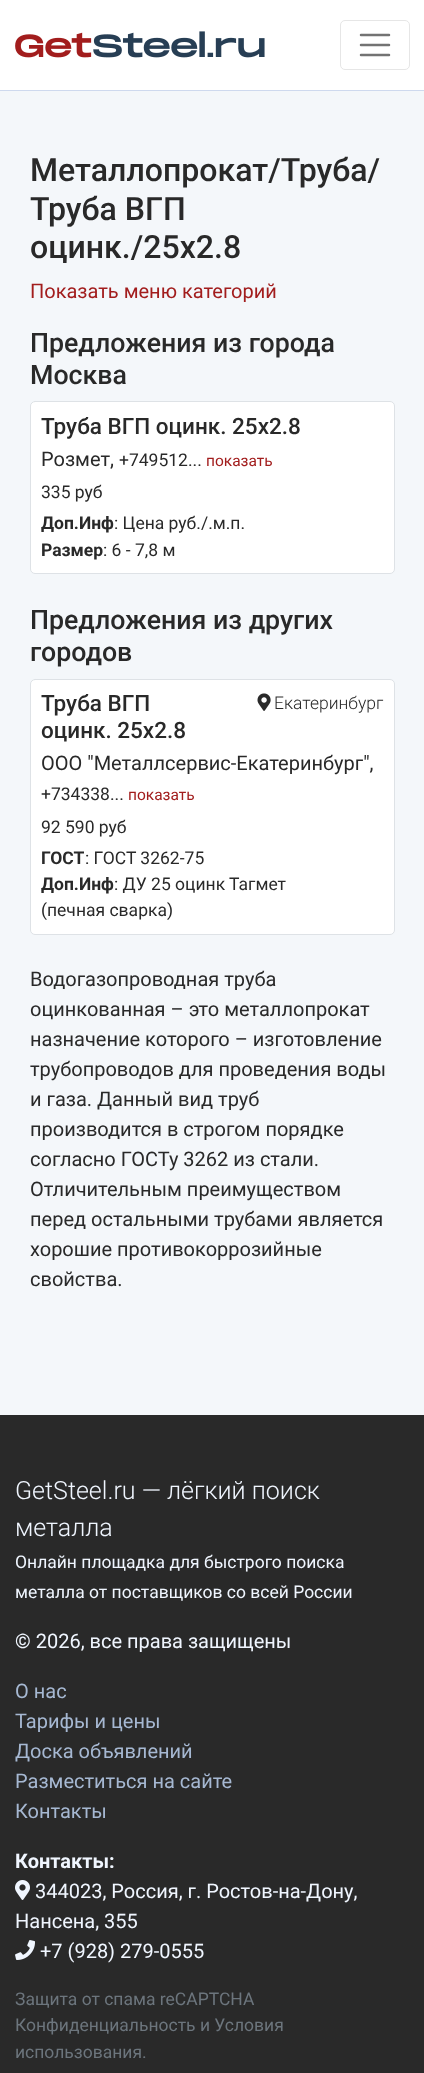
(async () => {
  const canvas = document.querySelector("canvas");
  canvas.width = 424;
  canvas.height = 2073;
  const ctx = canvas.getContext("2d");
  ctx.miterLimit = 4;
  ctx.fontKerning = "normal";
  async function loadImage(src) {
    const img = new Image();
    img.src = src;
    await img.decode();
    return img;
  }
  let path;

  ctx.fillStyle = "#f4f7fa";
  ctx.fillRect(0, 0, 424, 2073);
  ctx.fillStyle = "#ffffff";
  ctx.fillRect(0, 0, 424, 90);
  ctx.fillStyle = "#ced9ee";
  ctx.fillRect(0, 90, 424, 1);
  ctx.drawImage(await loadImage("img/1.png"), 15, 31, 250, 27);
  ctx.beginPath();
  ctx.roundRect(340.5, 20.5, 69, 49, 4.5);
  ctx.strokeStyle = "#e6e6e6";
  ctx.stroke();
  path = new Path2D("M361 35H389M361 45H389M361 55H389");
  ctx.strokeStyle = "#737373";
  ctx.lineWidth = 2.5;
  ctx.lineCap = "round";
  ctx.stroke(path);
  ctx.fillStyle = "#ffffff";
  ctx.beginPath();
  ctx.roundRect(30.5, 401.5, 364, 172, 4.5);
  ctx.fill();
  ctx.strokeStyle = "#dee2e6";
  ctx.lineWidth = 1;
  ctx.stroke();
  ctx.beginPath();
  ctx.roundRect(30.5, 679.5, 364, 255, 4.5);
  ctx.fill();
  ctx.stroke();
  ctx.drawImage(await loadImage("img/2.png"), 257, 693, 14, 18);
  ctx.fillStyle = "#292929";
  ctx.fillRect(0, 1415, 424, 658);
  ctx.drawImage(await loadImage("img/3.png"), 15, 1880, 15, 20);
  ctx.drawImage(await loadImage("img/4.png"), 15, 1940, 20, 20);
  ctx.font = "500 32.1px Roboto";
  for (const [text, x, y] of [
    ["Металлопрокат/Труба/", 30, 181],
    ["Труба ВГП", 30, 220],
    ["оцинк./25х2.8", 30, 258],
  ]) {
    ctx.fillText(text, x, y);
  }
  ctx.font = "20px Roboto";
  ctx.fillStyle = "#a21d1d";
  ctx.fillText("Показать меню категорий", 30, 298);
  ctx.font = "500 26.75px Roboto";
  ctx.fillStyle = "#292929";
  ctx.fillText("Предложения из города", 30, 352);
  ctx.fillText("Москва", 30, 384);
  ctx.font = "500 22.5px Roboto";
  ctx.fillText("Труба ВГП оцинк. 25x2.8", 41, 434);
  ctx.font = "20px Roboto";
  ctx.fillText("Розмет,", 41, 466);
  ctx.font = "17.5px Roboto";
  ctx.fillText("+749512...", 119, 466);
  ctx.font = "15.5px Roboto";
  ctx.fillStyle = "#a21d1d";
  ctx.fillText("показать", 206, 466);
  ctx.font = "17.5px Roboto";
  ctx.fillStyle = "#292929";
  ctx.fillText("335 руб", 41, 498);
  ctx.font = "bold 17.5px Roboto";
  ctx.fillText("Доп.Инф", 41, 529);
  ctx.font = "17.5px Roboto";
  ctx.fillText(": Цена руб./.м.п.", 114, 529);
  ctx.font = "bold 17.5px Roboto";
  ctx.fillText("Размер", 41, 556);
  ctx.font = "17.5px Roboto";
  ctx.fillText(": 6 - 7,8 м", 103, 556);
  ctx.font = "500 26.75px Roboto";
  ctx.fillText("Предложения из других", 30, 629);
  ctx.fillText("городов", 30, 661);
  ctx.font = "500 22.5px Roboto";
  ctx.fillText("Труба ВГП", 41, 711);
  ctx.fillText("оцинк. 25x2.8", 41, 738);
  ctx.font = "300 17.5px Roboto";
  ctx.fillText("Екатеринбург", 274, 709);
  ctx.font = "20px Roboto";
  ctx.fillText("OOO \"Металлсервис-Екатеринбург\",", 41, 770);
  ctx.font = "17.5px Roboto";
  ctx.fillText("+734338...", 41, 800);
  ctx.font = "15.5px Roboto";
  ctx.fillStyle = "#a21d1d";
  ctx.fillText("показать", 128, 800);
  ctx.font = "17.5px Roboto";
  ctx.fillStyle = "#292929";
  ctx.fillText("92 590 руб", 41, 833);
  ctx.font = "bold 17.5px Roboto";
  ctx.fillText("ГОСТ", 41, 864);
  ctx.font = "17.5px Roboto";
  ctx.fillText(": ГОСТ 3262-75", 85, 864);
  ctx.font = "bold 17.5px Roboto";
  ctx.fillText("Доп.Инф", 41, 890);
  ctx.font = "17.5px Roboto";
  ctx.fillText(": ДУ 25 оцинк Тагмет", 114, 890);
  ctx.fillText("(печная сварка)", 41, 916);
  ctx.font = "20px Roboto";
  for (const [text, x, y] of [
    ["Водогазопроводная труба", 30, 986],
    ["оцинкованная – это металлопрокат", 30, 1016],
    ["назначение которого – изготовление", 30, 1046],
    ["трубопроводов для проведения воды", 30, 1076],
    ["и газа. Данный вид труб", 30, 1106],
    ["производится в строгом порядке", 30, 1136],
    ["согласно ГОСТу 3262 из стали.", 30, 1166],
    ["Отличительным преимуществом", 30, 1196],
    ["перед остальными трубами является", 30, 1226],
    ["хорошие противокоррозийные", 30, 1256],
    ["свойства.", 30, 1286],
  ]) {
    ctx.fillText(text, x, y);
  }
  ctx.font = "300 25px Roboto";
  ctx.fillStyle = "#f0f6ff";
  ctx.fillText("GetSteel.ru — лёгкий поиск", 15, 1499);
  ctx.fillText("металла", 15, 1536);
  ctx.font = "17.5px Roboto";
  ctx.fillText("Онлайн площадка для быстрого поиска", 15, 1568);
  ctx.fillText("металла от поставщиков со всей России", 15, 1598);
  ctx.font = "20px Roboto";
  ctx.fillText("© 2026, все права защищены", 15, 1648);
  ctx.fillStyle = "#a6b8d2";
  for (const [text, x, y] of [
    ["О нас", 15, 1698],
    ["Тарифы и цены", 15, 1728],
    ["Доска объявлений", 15, 1758],
    ["Разместиться на сайте", 15, 1788],
    ["Контакты", 15, 1818],
  ]) {
    ctx.fillText(text, x, y);
  }
  ctx.font = "bold 20px Roboto";
  ctx.fillStyle = "#f0f6ff";
  ctx.fillText("Контакты:", 15, 1868);
  ctx.font = "20px Roboto";
  for (const [text, x, y] of [
    ["344023, Россия, г. Ростов-на-Дону,", 35, 1898],
    ["Нансена, 355", 15, 1928],
    ["+7 (928) 279-0555", 40, 1958],
  ]) {
    ctx.fillText(text, x, y);
  }
  ctx.font = "17.5px Roboto";
  ctx.fillStyle = "#6c757d";
  for (const [text, x, y] of [
    ["Защита от спама reCAPTCHA", 15, 2005],
    ["Конфиденциальность и Условия", 15, 2031],
    ["использования.", 15, 2058],
  ]) {
    ctx.fillText(text, x, y);
  }
})();
